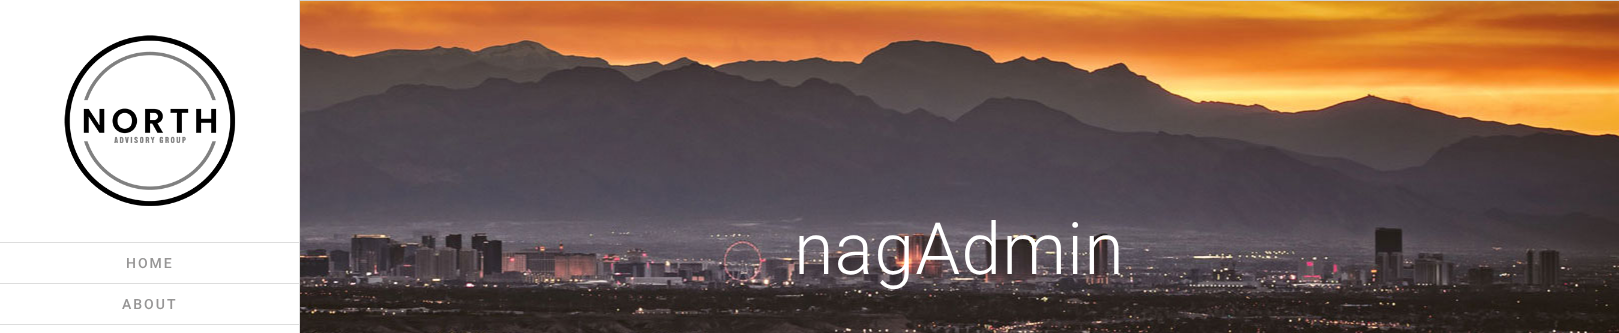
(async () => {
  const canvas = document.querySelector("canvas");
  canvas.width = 1619;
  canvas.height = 333;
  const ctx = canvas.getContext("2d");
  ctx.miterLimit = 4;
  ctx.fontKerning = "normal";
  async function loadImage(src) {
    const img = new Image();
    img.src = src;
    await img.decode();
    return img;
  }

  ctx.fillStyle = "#ffffff";
  ctx.fillRect(0, 0, 1619, 333);
  ctx.drawImage(await loadImage("img/1.png"), 64, 35, 172, 171);
  for (const [x, y, w, h, color] of [
    [0, 242, 299, 1, "#dddddd"],
    [0, 283, 299, 1, "#dddddd"],
    [0, 324, 299, 1, "#dddddd"],
    [299, 0, 1, 333, "#dddddd"],
  ]) {
    ctx.fillStyle = color;
    ctx.fillRect(x, y, w, h);
  }
  ctx.drawImage(await loadImage("img/2.png"), 300, 1, 1319, 332);
  ctx.fillStyle = "#d2d3d4";
  ctx.fillRect(300, 0, 1319, 1);
  ctx.letterSpacing = "2px";
  ctx.font = "500 14px Roboto";
  ctx.fillStyle = "#969595";
  ctx.fillText("HOME", 126, 268);
  ctx.fillText("ABOUT", 122, 309);
  ctx.letterSpacing = "1px";
  ctx.font = "300 72px Roboto";
  ctx.fillStyle = "#ffffff";
  ctx.fillText("nagAdmin", 794, 274);
})();
